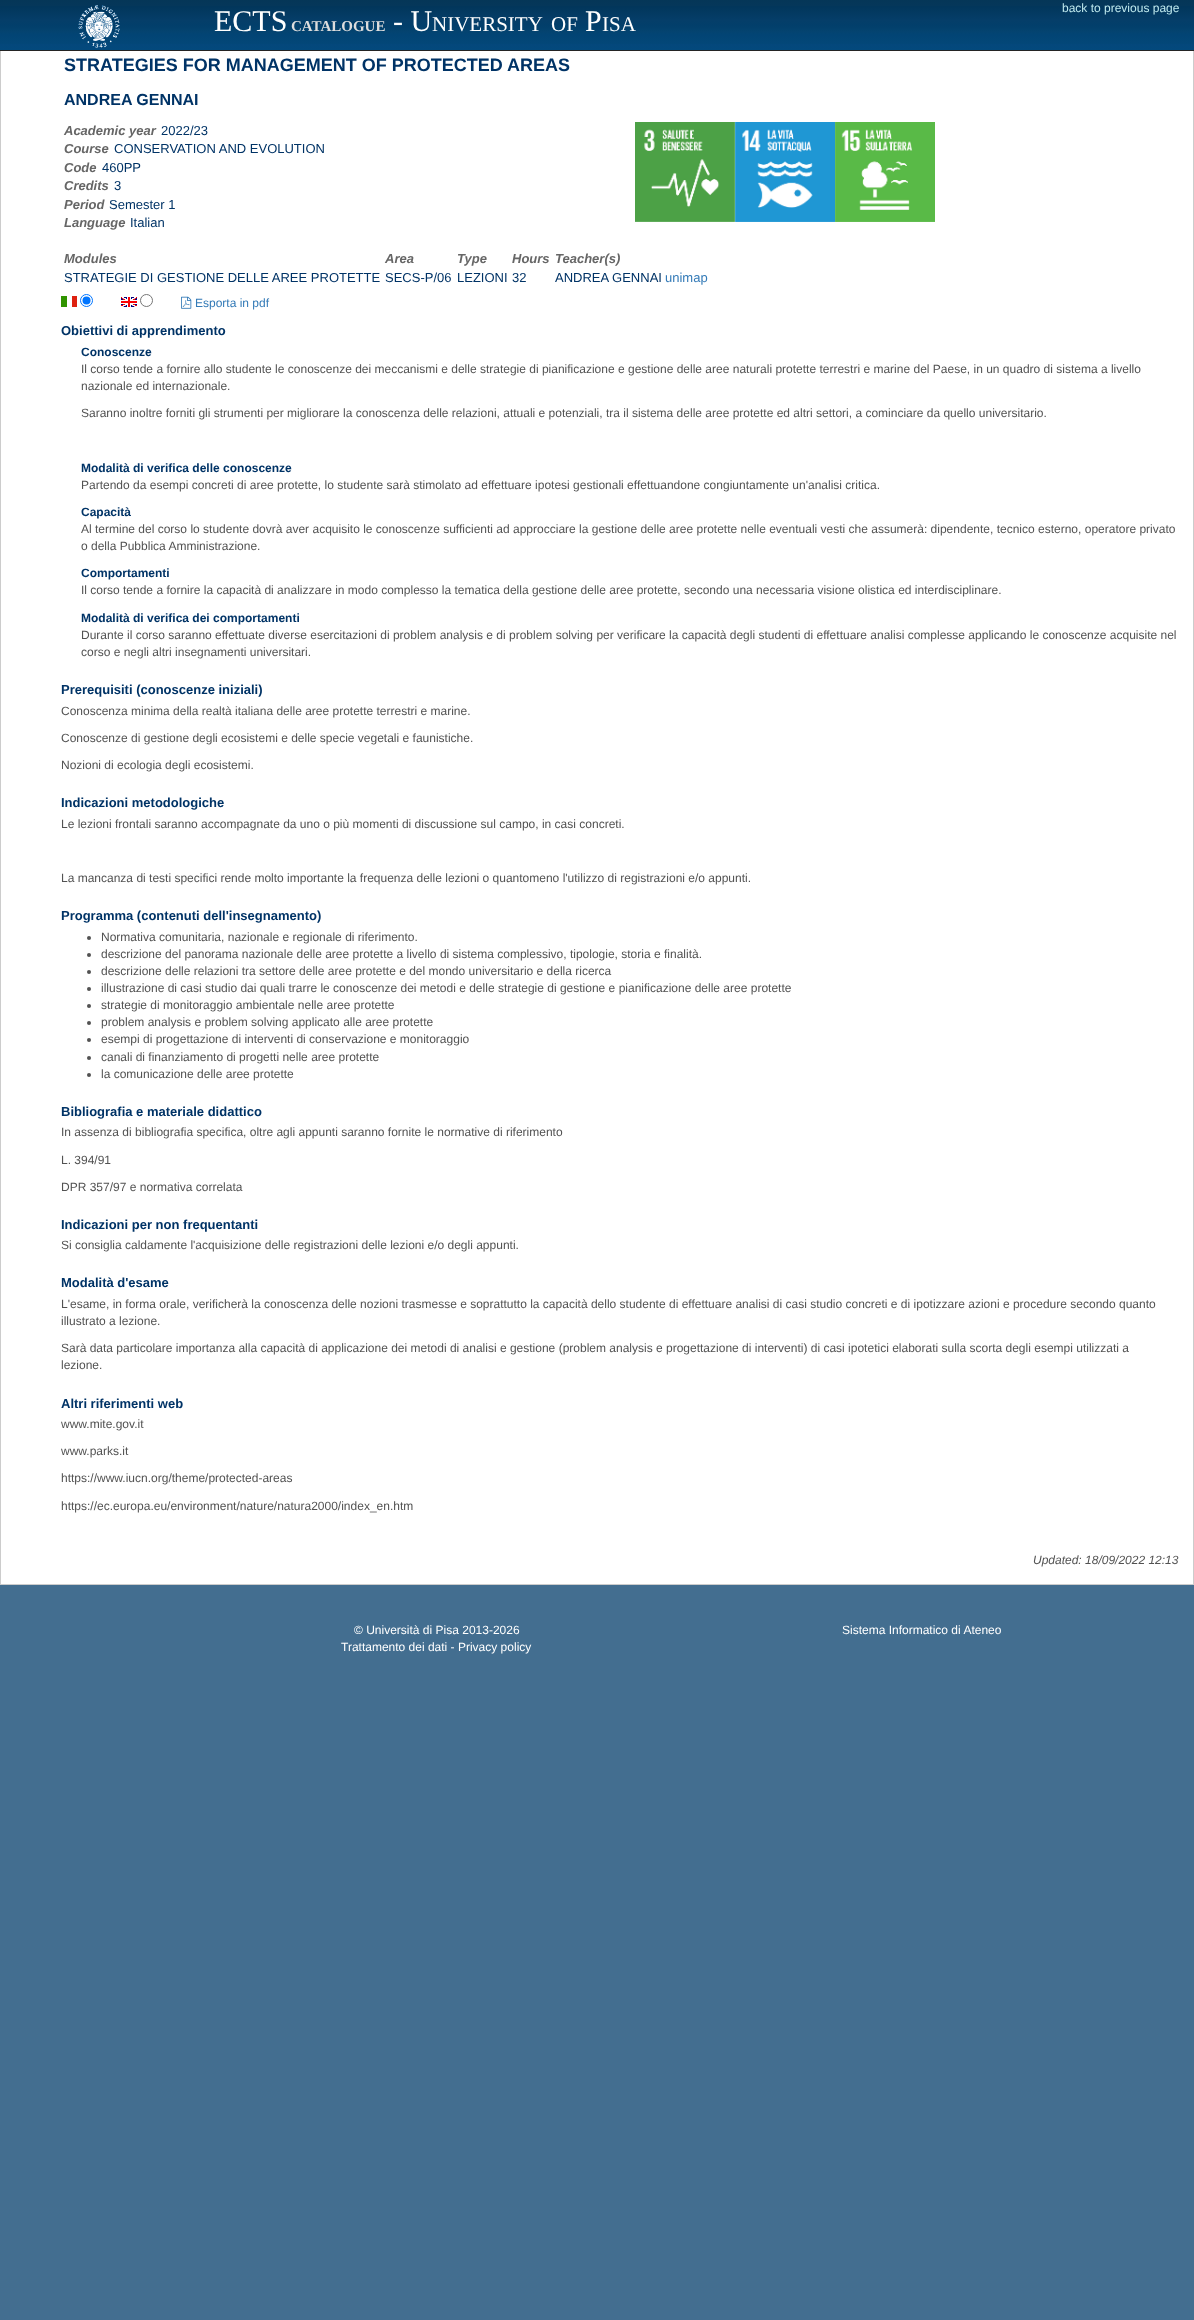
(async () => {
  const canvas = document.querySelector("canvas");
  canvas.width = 1194;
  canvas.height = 2320;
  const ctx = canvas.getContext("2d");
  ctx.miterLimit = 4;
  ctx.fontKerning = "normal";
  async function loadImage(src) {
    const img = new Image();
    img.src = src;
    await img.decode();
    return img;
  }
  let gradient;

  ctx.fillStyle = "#436e90";
  ctx.fillRect(0, 0, 1194, 2320);
  ctx.strokeStyle = "#cccccc";
  ctx.strokeRect(0.5, 10.5, 1193, 1574);
  ctx.fillStyle = "#242424";
  ctx.fillRect(0, 50, 1194, 1);
  gradient = ctx.createLinearGradient(597, 0, 597, 50);
  gradient.addColorStop(0, "#053657");
  gradient.addColorStop(0.12, "#05375a");
  gradient.addColorStop(0.13, "#02365b");
  gradient.addColorStop(0.41, "#053e69");
  gradient.addColorStop(0.52, "#023f6b");
  gradient.addColorStop(0.62, "#04436f");
  gradient.addColorStop(0.69, "#024474");
  gradient.addColorStop(0.87, "#034778");
  gradient.addColorStop(0.88, "#04477b");
  gradient.addColorStop(0.99, "#03497c");
  gradient.addColorStop(1, "#004d79");
  ctx.fillStyle = gradient;
  ctx.fillRect(0, 0, 1194, 50);
  ctx.drawImage(await loadImage("img/1.png"), 78, 5, 42, 43);
  ctx.fillStyle = "#ffffff";
  ctx.fillRect(1, 51, 1192, 1533);
  ctx.drawImage(await loadImage("img/2.png"), 635, 122, 100, 100);
  ctx.drawImage(await loadImage("img/3.png"), 735, 122, 100, 100);
  ctx.drawImage(await loadImage("img/4.png"), 835, 122, 100, 100);
  ctx.drawImage(await loadImage("img/5.png"), 61, 296, 16, 11);
  ctx.beginPath();
  ctx.arc(86.5, 300.5, 6, 0, Math.PI * 2);
  ctx.strokeStyle = "#0075ff";
  ctx.stroke();
  ctx.fillStyle = "#0075ff";
  ctx.beginPath();
  ctx.arc(86.5, 300.5, 4, 0, Math.PI * 2);
  ctx.fill();
  ctx.drawImage(await loadImage("img/6.png"), 121, 297, 16, 10);
  ctx.beginPath();
  ctx.arc(146.5, 300.5, 6, 0, Math.PI * 2);
  ctx.strokeStyle = "#767676";
  ctx.stroke();
  ctx.drawImage(await loadImage("img/7.png"), 181, 296, 11, 13);
  ctx.fillStyle = "#525252";
  ctx.beginPath();
  ctx.arc(89, 938, 2, 0, Math.PI * 2);
  ctx.fill();
  ctx.beginPath();
  ctx.arc(89, 955, 2, 0, Math.PI * 2);
  ctx.fill();
  ctx.beginPath();
  ctx.arc(89, 972, 2, 0, Math.PI * 2);
  ctx.fill();
  ctx.beginPath();
  ctx.arc(89, 989, 2, 0, Math.PI * 2);
  ctx.fill();
  ctx.beginPath();
  ctx.arc(89, 1006, 2, 0, Math.PI * 2);
  ctx.fill();
  ctx.beginPath();
  ctx.arc(89, 1023, 2, 0, Math.PI * 2);
  ctx.fill();
  ctx.beginPath();
  ctx.arc(89, 1040, 2, 0, Math.PI * 2);
  ctx.fill();
  ctx.beginPath();
  ctx.arc(89, 1058, 2, 0, Math.PI * 2);
  ctx.fill();
  ctx.beginPath();
  ctx.arc(89, 1075, 2, 0, Math.PI * 2);
  ctx.fill();
  ctx.font = "30px Liberation Serif";
  ctx.fillStyle = "#ffffff";
  ctx.fillText("ECTS", 214, 31);
  ctx.font = "bold 15px Liberation Serif";
  ctx.fillStyle = "#dddddd";
  ctx.fillText("CATALOGUE", 291, 31);
  ctx.font = "30px Liberation Serif";
  ctx.fillStyle = "#ffffff";
  ctx.fillText("- U", 393, 31);
  ctx.font = "21px Liberation Serif";
  ctx.fillText("NIVERSITY", 432, 31);
  ctx.fillText("OF", 551, 31);
  ctx.font = "30px Liberation Serif";
  ctx.fillText("P", 585, 31);
  ctx.font = "21px Liberation Serif";
  ctx.fillText("ISA", 602, 31);
  ctx.font = "12px Liberation Sans";
  ctx.fillStyle = "#bee8ed";
  ctx.fillText("back to previous page", 1062, 12);
  ctx.font = "bold 18px Liberation Sans";
  ctx.fillStyle = "#003366";
  ctx.fillText("STRATEGIES FOR MANAGEMENT OF PROTECTED AREAS", 64, 71);
  ctx.font = "bold 16px Liberation Sans";
  ctx.fillText("ANDREA GENNAI", 64, 105);
  ctx.font = "italic bold 13px Liberation Sans";
  ctx.fillStyle = "#666666";
  ctx.fillText("Academic year", 64, 135);
  ctx.font = "13px Liberation Sans";
  ctx.fillStyle = "#003366";
  ctx.fillText("2022/23", 161, 135);
  ctx.font = "italic bold 13px Liberation Sans";
  ctx.fillStyle = "#666666";
  ctx.fillText("Course", 64, 153);
  ctx.font = "13px Liberation Sans";
  ctx.fillStyle = "#003366";
  ctx.fillText("CONSERVATION AND EVOLUTION", 114, 153);
  ctx.font = "italic bold 13px Liberation Sans";
  ctx.fillStyle = "#666666";
  ctx.fillText("Code", 64, 172);
  ctx.font = "13px Liberation Sans";
  ctx.fillStyle = "#003366";
  ctx.fillText("460PP", 102, 172);
  ctx.font = "italic bold 13px Liberation Sans";
  ctx.fillStyle = "#666666";
  ctx.fillText("Credits", 64, 190);
  ctx.font = "13px Liberation Sans";
  ctx.fillStyle = "#003366";
  ctx.fillText("3", 114, 190);
  ctx.font = "italic bold 13px Liberation Sans";
  ctx.fillStyle = "#666666";
  ctx.fillText("Period", 64, 209);
  ctx.font = "13px Liberation Sans";
  ctx.fillStyle = "#003366";
  ctx.fillText("Semester 1", 109, 209);
  ctx.font = "italic bold 13px Liberation Sans";
  ctx.fillStyle = "#666666";
  ctx.fillText("Language", 64, 227);
  ctx.font = "13px Liberation Sans";
  ctx.fillStyle = "#003366";
  ctx.fillText("Italian", 130, 227);
  ctx.font = "italic bold 13px Liberation Sans";
  ctx.fillStyle = "#666666";
  for (const [text, x, y] of [
    ["Modules", 64, 263],
    ["Area", 385, 263],
    ["Type", 457, 263],
    ["Hours", 512, 263],
    ["Teacher(s)", 555, 263],
  ]) {
    ctx.fillText(text, x, y);
  }
  ctx.font = "13px Liberation Sans";
  ctx.fillStyle = "#003366";
  for (const [text, x, y] of [
    ["STRATEGIE DI GESTIONE DELLE AREE PROTETTE", 64, 282],
    ["SECS-P/06", 385, 282],
    ["LEZIONI", 457, 282],
    ["32", 512, 282],
    ["ANDREA GENNAI", 555, 282],
  ]) {
    ctx.fillText(text, x, y);
  }
  ctx.fillStyle = "#337ab7";
  ctx.fillText("unimap", 665, 282);
  ctx.font = "12px Liberation Sans";
  ctx.fillText("Esporta in pdf", 195, 307);
  ctx.font = "bold 13px Liberation Sans";
  ctx.fillStyle = "#003366";
  ctx.fillText("Obiettivi di apprendimento", 61, 335);
  ctx.font = "bold 12px Liberation Sans";
  ctx.fillText("Conoscenze", 81, 356);
  ctx.font = "12px Liberation Sans";
  ctx.fillStyle = "#525252";
  for (const [text, x, y] of [
    ["Il corso tende a fornire allo studente le conoscenze dei meccanismi e delle strategie di pianificazione e gestione delle aree naturali protette terrestri e marine del Paese, in un quadro di sistema a livello", 81, 373],
    ["nazionale ed internazionale.", 81, 390],
    ["Saranno inoltre forniti gli strumenti per migliorare la conoscenza delle relazioni, attuali e potenziali, tra il sistema delle aree protette ed altri settori, a cominciare da quello universitario.", 81, 417],
  ]) {
    ctx.fillText(text, x, y);
  }
  ctx.font = "bold 12px Liberation Sans";
  ctx.fillStyle = "#003366";
  ctx.fillText("Modalità di verifica delle conoscenze", 81, 472);
  ctx.font = "12px Liberation Sans";
  ctx.fillStyle = "#525252";
  ctx.fillText("Partendo da esempi concreti di aree protette, lo studente sarà stimolato ad effettuare ipotesi gestionali effettuandone congiuntamente un'analisi critica.", 81, 489);
  ctx.font = "bold 12px Liberation Sans";
  ctx.fillStyle = "#003366";
  ctx.fillText("Capacità", 81, 516);
  ctx.font = "12px Liberation Sans";
  ctx.fillStyle = "#525252";
  ctx.fillText("Al termine del corso lo studente dovrà aver acquisito le conoscenze sufficienti ad approcciare la gestione delle aree protette nelle eventuali vesti che assumerà: dipendente, tecnico esterno, operatore privato", 81, 533);
  ctx.fillText("o della Pubblica Amministrazione.", 81, 550);
  ctx.font = "bold 12px Liberation Sans";
  ctx.fillStyle = "#003366";
  ctx.fillText("Comportamenti", 81, 577);
  ctx.font = "12px Liberation Sans";
  ctx.fillStyle = "#525252";
  ctx.fillText("Il corso tende a fornire la capacità di analizzare in modo complesso la tematica della gestione delle aree protette, secondo una necessaria visione olistica ed interdisciplinare.", 81, 594);
  ctx.font = "bold 12px Liberation Sans";
  ctx.fillStyle = "#003366";
  ctx.fillText("Modalità di verifica dei comportamenti", 81, 622);
  ctx.font = "12px Liberation Sans";
  ctx.fillStyle = "#525252";
  ctx.fillText("Durante il corso saranno effettuate diverse esercitazioni di problem analysis e di problem solving per verificare la capacità degli studenti di effettuare analisi complesse applicando le conoscenze acquisite nel", 81, 639);
  ctx.fillText("corso e negli altri insegnamenti universitari.", 81, 656);
  ctx.font = "bold 13px Liberation Sans";
  ctx.fillStyle = "#003366";
  ctx.fillText("Prerequisiti (conoscenze iniziali)", 61, 694);
  ctx.font = "12px Liberation Sans";
  ctx.fillStyle = "#525252";
  for (const [text, x, y] of [
    ["Conoscenza minima della realtà italiana delle aree protette terrestri e marine.", 61, 715],
    ["Conoscenze di gestione degli ecosistemi e delle specie vegetali e faunistiche.", 61, 742],
    ["Nozioni di ecologia degli ecosistemi.", 61, 769],
  ]) {
    ctx.fillText(text, x, y);
  }
  ctx.font = "bold 13px Liberation Sans";
  ctx.fillStyle = "#003366";
  ctx.fillText("Indicazioni metodologiche", 61, 807);
  ctx.font = "12px Liberation Sans";
  ctx.fillStyle = "#525252";
  ctx.fillText("Le lezioni frontali saranno accompagnate da uno o più momenti di discussione sul campo, in casi concreti.", 61, 828);
  ctx.fillText("La mancanza di testi specifici rende molto importante la frequenza delle lezioni o quantomeno l'utilizzo di registrazioni e/o appunti.", 61, 882);
  ctx.font = "bold 13px Liberation Sans";
  ctx.fillStyle = "#003366";
  ctx.fillText("Programma (contenuti dell'insegnamento)", 61, 920);
  ctx.font = "12px Liberation Sans";
  ctx.fillStyle = "#525252";
  for (const [text, x, y] of [
    ["Normativa comunitaria, nazionale e regionale di riferimento.", 101, 941],
    ["descrizione del panorama nazionale delle aree protette a livello di sistema complessivo, tipologie, storia e finalità.", 101, 958],
    ["descrizione delle relazioni tra settore delle aree protette e del mondo universitario e della ricerca", 101, 975],
    ["illustrazione di casi studio dai quali trarre le conoscenze dei metodi e delle strategie di gestione e pianificazione delle aree protette", 101, 992],
    ["strategie di monitoraggio ambientale nelle aree protette", 101, 1009],
    ["problem analysis e problem solving applicato alle aree protette", 101, 1026],
    ["esempi di progettazione di interventi di conservazione e monitoraggio", 101, 1043],
    ["canali di finanziamento di progetti nelle aree protette", 101, 1061],
    ["la comunicazione delle aree protette", 101, 1078],
  ]) {
    ctx.fillText(text, x, y);
  }
  ctx.font = "bold 13px Liberation Sans";
  ctx.fillStyle = "#003366";
  ctx.fillText("Bibliografia e materiale didattico", 61, 1116);
  ctx.font = "12px Liberation Sans";
  ctx.fillStyle = "#525252";
  for (const [text, x, y] of [
    ["In assenza di bibliografia specifica, oltre agli appunti saranno fornite le normative di riferimento", 61, 1136],
    ["L. 394/91", 61, 1164],
    ["DPR 357/97 e normativa correlata", 61, 1191],
  ]) {
    ctx.fillText(text, x, y);
  }
  ctx.font = "bold 13px Liberation Sans";
  ctx.fillStyle = "#003366";
  ctx.fillText("Indicazioni per non frequentanti", 61, 1229);
  ctx.font = "12px Liberation Sans";
  ctx.fillStyle = "#525252";
  ctx.fillText("Si consiglia caldamente l'acquisizione delle registrazioni delle lezioni e/o degli appunti.", 61, 1249);
  ctx.font = "bold 13px Liberation Sans";
  ctx.fillStyle = "#003366";
  ctx.fillText("Modalità d'esame", 61, 1287);
  ctx.font = "12px Liberation Sans";
  ctx.fillStyle = "#525252";
  for (const [text, x, y] of [
    ["L'esame, in forma orale, verificherà la conoscenza delle nozioni trasmesse e soprattutto la capacità dello studente di effettuare analisi di casi studio concreti e di ipotizzare azioni e procedure secondo quanto", 61, 1308],
    ["illustrato a lezione.", 61, 1325],
    ["Sarà data particolare importanza alla capacità di applicazione dei metodi di analisi e gestione (problem analysis e progettazione di interventi) di casi ipotetici elaborati sulla scorta degli esempi utilizzati a", 61, 1352],
    ["lezione.", 61, 1369],
  ]) {
    ctx.fillText(text, x, y);
  }
  ctx.font = "bold 13px Liberation Sans";
  ctx.fillStyle = "#003366";
  ctx.fillText("Altri riferimenti web", 61, 1408);
  ctx.font = "12px Liberation Sans";
  ctx.fillStyle = "#525252";
  for (const [text, x, y] of [
    ["www.mite.gov.it", 61, 1428],
    ["www.parks.it", 61, 1455],
    ["https://www.iucn.org/theme/protected-areas", 61, 1482],
    ["https://ec.europa.eu/environment/nature/natura2000/index_en.htm", 61, 1510],
  ]) {
    ctx.fillText(text, x, y);
  }
  ctx.font = "italic 12px Liberation Sans";
  ctx.fillText("Updated: 18/09/2022 12:13", 1033, 1564);
  ctx.font = "12px Liberation Sans";
  ctx.fillStyle = "#ffffff";
  for (const [text, x, y] of [
    ["© Università di Pisa 2013-2026", 354, 1634],
    ["Trattamento dei dati - Privacy policy", 341, 1651],
    ["Sistema Informatico di Ateneo", 842, 1634],
  ]) {
    ctx.fillText(text, x, y);
  }
})();
